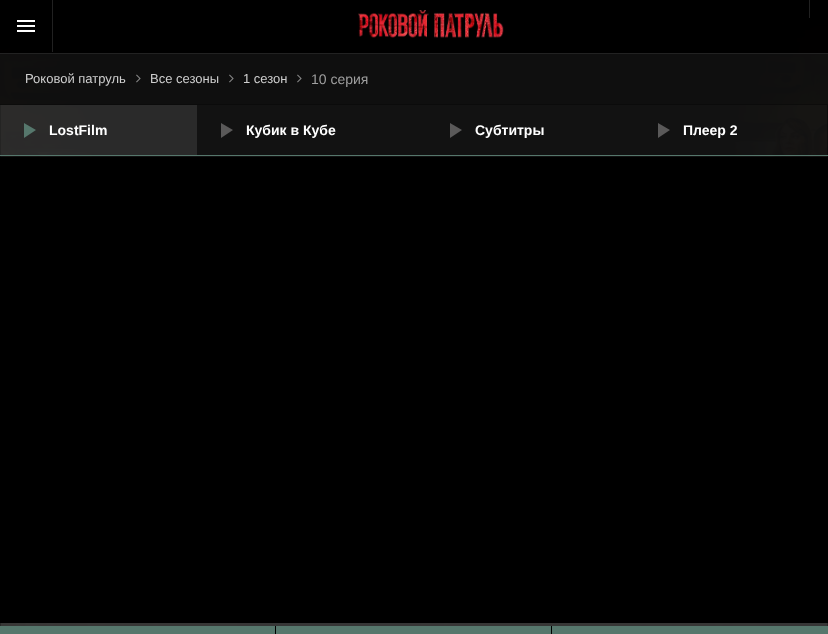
(async () => {
  const canvas = document.querySelector("canvas");
  canvas.width = 828;
  canvas.height = 634;
  const ctx = canvas.getContext("2d");
  ctx.miterLimit = 4;
  ctx.fontKerning = "normal";
  async function loadImage(src) {
    const img = new Image();
    img.src = src;
    await img.decode();
    return img;
  }
  let path;

  ctx.fillStyle = "#ffffff";
  ctx.fillRect(0, 0, 828, 634);
  ctx.drawImage(await loadImage("img/1.png"), 0, 0, 828, 626);
  ctx.save();
  ctx.beginPath();
  ctx.rect(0, 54, 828, 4);
  ctx.clip();
  ctx.fillStyle = "rgba(0, 0, 0, 0.4)";
  ctx.filter = "blur(2.5px)";
  ctx.beginPath();
  ctx.rect(0, 1, 828, 53);
  ctx.fill();
  ctx.filter = "none";
  ctx.restore();
  ctx.fillStyle = "rgba(0, 0, 0, 0.99)";
  ctx.fillRect(0, 0, 828, 53);
  ctx.fillStyle = "#212121";
  ctx.fillRect(52, 0, 1, 52);
  ctx.drawImage(await loadImage("img/2.png"), 17, 20, 18, 12);
  ctx.drawImage(await loadImage("img/3.png"), 358, 10, 146, 28);
  for (const [x, y, w, h, color] of [
    [809, 0, 1, 18, "#212121"],
    [0, 54, 828, 50, "rgba(15, 15, 15, 0.98)"],
    [0, 53, 828, 1, "#222222"],
  ]) {
    ctx.fillStyle = color;
    ctx.fillRect(x, y, w, h);
  }
  ctx.drawImage(await loadImage("img/4.png"), 136, 74, 5, 9);
  ctx.drawImage(await loadImage("img/4.png"), 229, 74, 5, 9);
  ctx.drawImage(await loadImage("img/4.png"), 297, 74, 5, 9);
  ctx.fillStyle = "rgba(39, 39, 39, 0.95)";
  ctx.fillRect(0, 104, 828, 522);
  ctx.strokeStyle = "rgba(0, 0, 0, 0.4)";
  ctx.strokeRect(0.5, 104.5, 827, 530);
  for (const [x, y, w, h, color] of [
    [0, 623, 828, 3, "rgba(255, 255, 255, 0.08)"],
    [0, 104, 828, 53, "rgba(0, 0, 0, 0.5)"],
    [0, 105, 197, 50, "rgba(255, 255, 255, 0.1)"],
    [0, 155, 828, 1, "#56776c"],
  ]) {
    ctx.fillStyle = color;
    ctx.fillRect(x, y, w, h);
  }
  path = new Path2D("M24 123L36 130L24 138Z");
  ctx.fill(path);
  ctx.fillStyle = "#5a5959";
  path = new Path2D("M221 123L233 130L221 138Z");
  ctx.fill(path);
  path = new Path2D("M450 123L462 130L450 138Z");
  ctx.fill(path);
  path = new Path2D("M658 123L670 130L658 138Z");
  ctx.fill(path);
  for (const [x, y, w, h, color] of [
    [0, 157, 828, 466, "#000000"],
    [275, 626, 1, 8, "#000000"],
    [0, 626, 275, 8, "#56776c"],
    [551, 626, 1, 8, "#000000"],
    [276, 626, 275, 8, "#56776c"],
    [552, 626, 276, 8, "#56776c"],
  ]) {
    ctx.fillStyle = color;
    ctx.fillRect(x, y, w, h);
  }
  ctx.font = "13px Liberation Sans";
  ctx.fillStyle = "#cfcfcf";
  for (const [text, x, y] of [
    ["Роковой патруль", 25, 83],
    ["Все сезоны", 150, 83],
    ["1 сезон", 243, 83],
  ]) {
    ctx.fillText(text, x, y);
  }
  ctx.font = "14px Liberation Sans";
  ctx.fillStyle = "#9f9f9f";
  ctx.fillText("10 серия", 311, 84);
  ctx.font = "bold 14px Liberation Sans";
  ctx.fillStyle = "#ffffff";
  for (const [text, x, y] of [
    ["LostFilm", 49, 135],
    ["Кубик в Кубе", 246, 135],
    ["Субтитры", 475, 135],
    ["Плеер 2", 683, 135],
  ]) {
    ctx.fillText(text, x, y);
  }
})();
